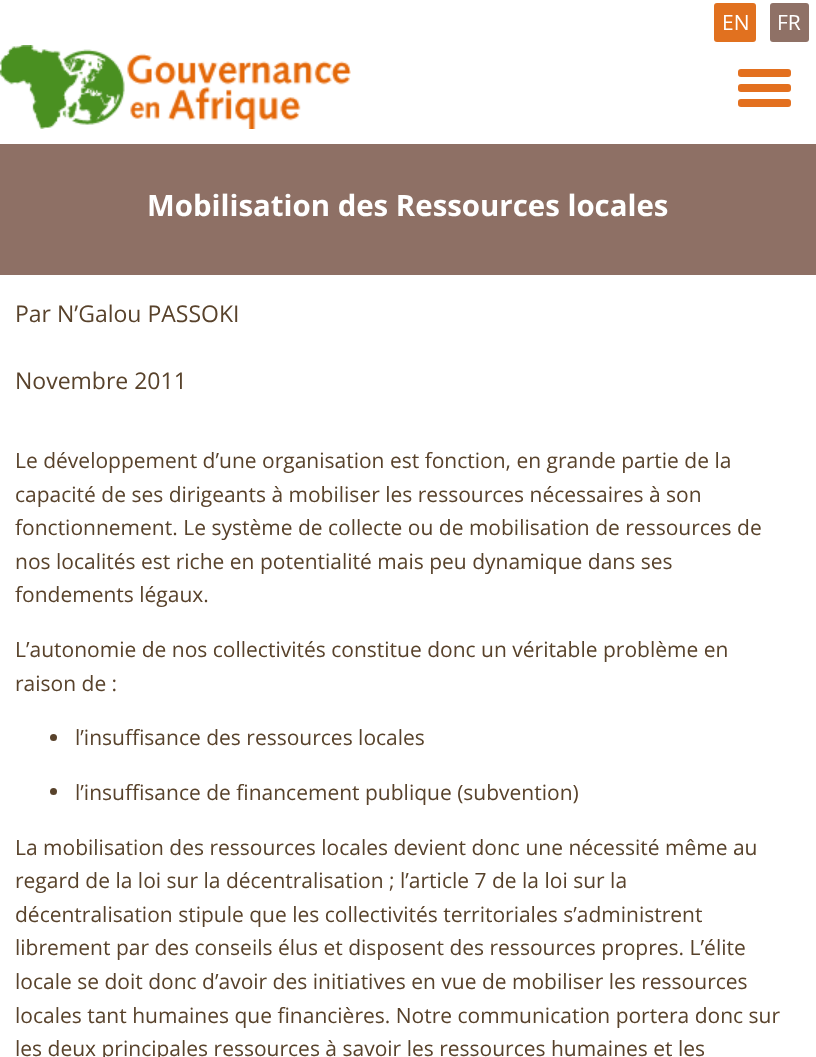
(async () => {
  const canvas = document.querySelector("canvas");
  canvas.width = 816;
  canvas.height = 1057;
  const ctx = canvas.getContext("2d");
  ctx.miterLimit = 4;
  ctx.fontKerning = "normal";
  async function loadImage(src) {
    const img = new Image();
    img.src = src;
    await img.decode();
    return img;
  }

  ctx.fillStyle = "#ffffff";
  ctx.fillRect(0, 0, 816, 1057);
  ctx.fillStyle = "#e1711f";
  ctx.beginPath();
  ctx.roundRect(714, 3, 42, 39, 3);
  ctx.fill();
  ctx.fillStyle = "#8f7166";
  ctx.beginPath();
  ctx.roundRect(770, 3, 39, 39, 3);
  ctx.fill();
  ctx.drawImage(await loadImage("img/1.png"), 0, 45, 351, 84);
  ctx.fillStyle = "#e3701f";
  ctx.beginPath();
  ctx.roundRect(738, 69, 53, 8, 3);
  ctx.fill();
  ctx.beginPath();
  ctx.roundRect(738, 84, 53, 8, 3);
  ctx.fill();
  ctx.beginPath();
  ctx.roundRect(738, 99, 53, 8, 3);
  ctx.fill();
  ctx.fillStyle = "#8e7065";
  ctx.fillRect(0, 144, 816, 131);
  ctx.fillStyle = "#58422b";
  ctx.beginPath();
  ctx.arc(53.5, 737.5, 3.5, 0, Math.PI * 2);
  ctx.fill();
  ctx.beginPath();
  ctx.arc(53.5, 791.5, 3.5, 0, Math.PI * 2);
  ctx.fill();
  ctx.font = "21px Open Sans";
  ctx.fillStyle = "#ffffff";
  ctx.fillText("EN", 722, 30);
  ctx.fillText("FR", 777, 30);
  ctx.font = "bold 29.4px Open Sans";
  ctx.fillText("Mobilisation des Ressources locales", 147, 216);
  ctx.font = "23px Open Sans";
  ctx.fillStyle = "#58422b";
  ctx.fillText("Par N’Galou PASSOKI", 15, 322);
  ctx.fillText("Novembre 2011", 15, 389);
  ctx.font = "21px Open Sans";
  for (const [text, x, y] of [
    ["Le développement d’une organisation est fonction, en grande partie de la", 15, 468],
    ["capacité de ses dirigeants à mobiliser les ressources nécessaires à son", 15, 502],
    ["fonctionnement. Le système de collecte ou de mobilisation de ressources de", 15, 535],
    ["nos localités est riche en potentialité mais peu dynamique dans ses", 15, 569],
    ["fondements légaux.", 15, 602],
    ["L’autonomie de nos collectivités constitue donc un véritable problème en", 15, 657],
    ["raison de :", 15, 691],
    ["l’insuffisance des ressources locales", 75, 745],
    ["l’insuffisance de financement publique (subvention)", 75, 800],
    ["La mobilisation des ressources locales devient donc une nécessité même au", 15, 855],
    ["regard de la loi sur la décentralisation ; l’article 7 de la loi sur la", 15, 888],
    ["décentralisation stipule que les collectivités territoriales s’administrent", 15, 922],
    ["librement par des conseils élus et disposent des ressources propres. L’élite", 15, 955],
    ["locale se doit donc d’avoir des initiatives en vue de mobiliser les ressources", 15, 989],
    ["locales tant humaines que financières. Notre communication portera donc sur", 15, 1023],
    ["les deux principales ressources à savoir les ressources humaines et les", 15, 1056],
  ]) {
    ctx.fillText(text, x, y);
  }
})();
